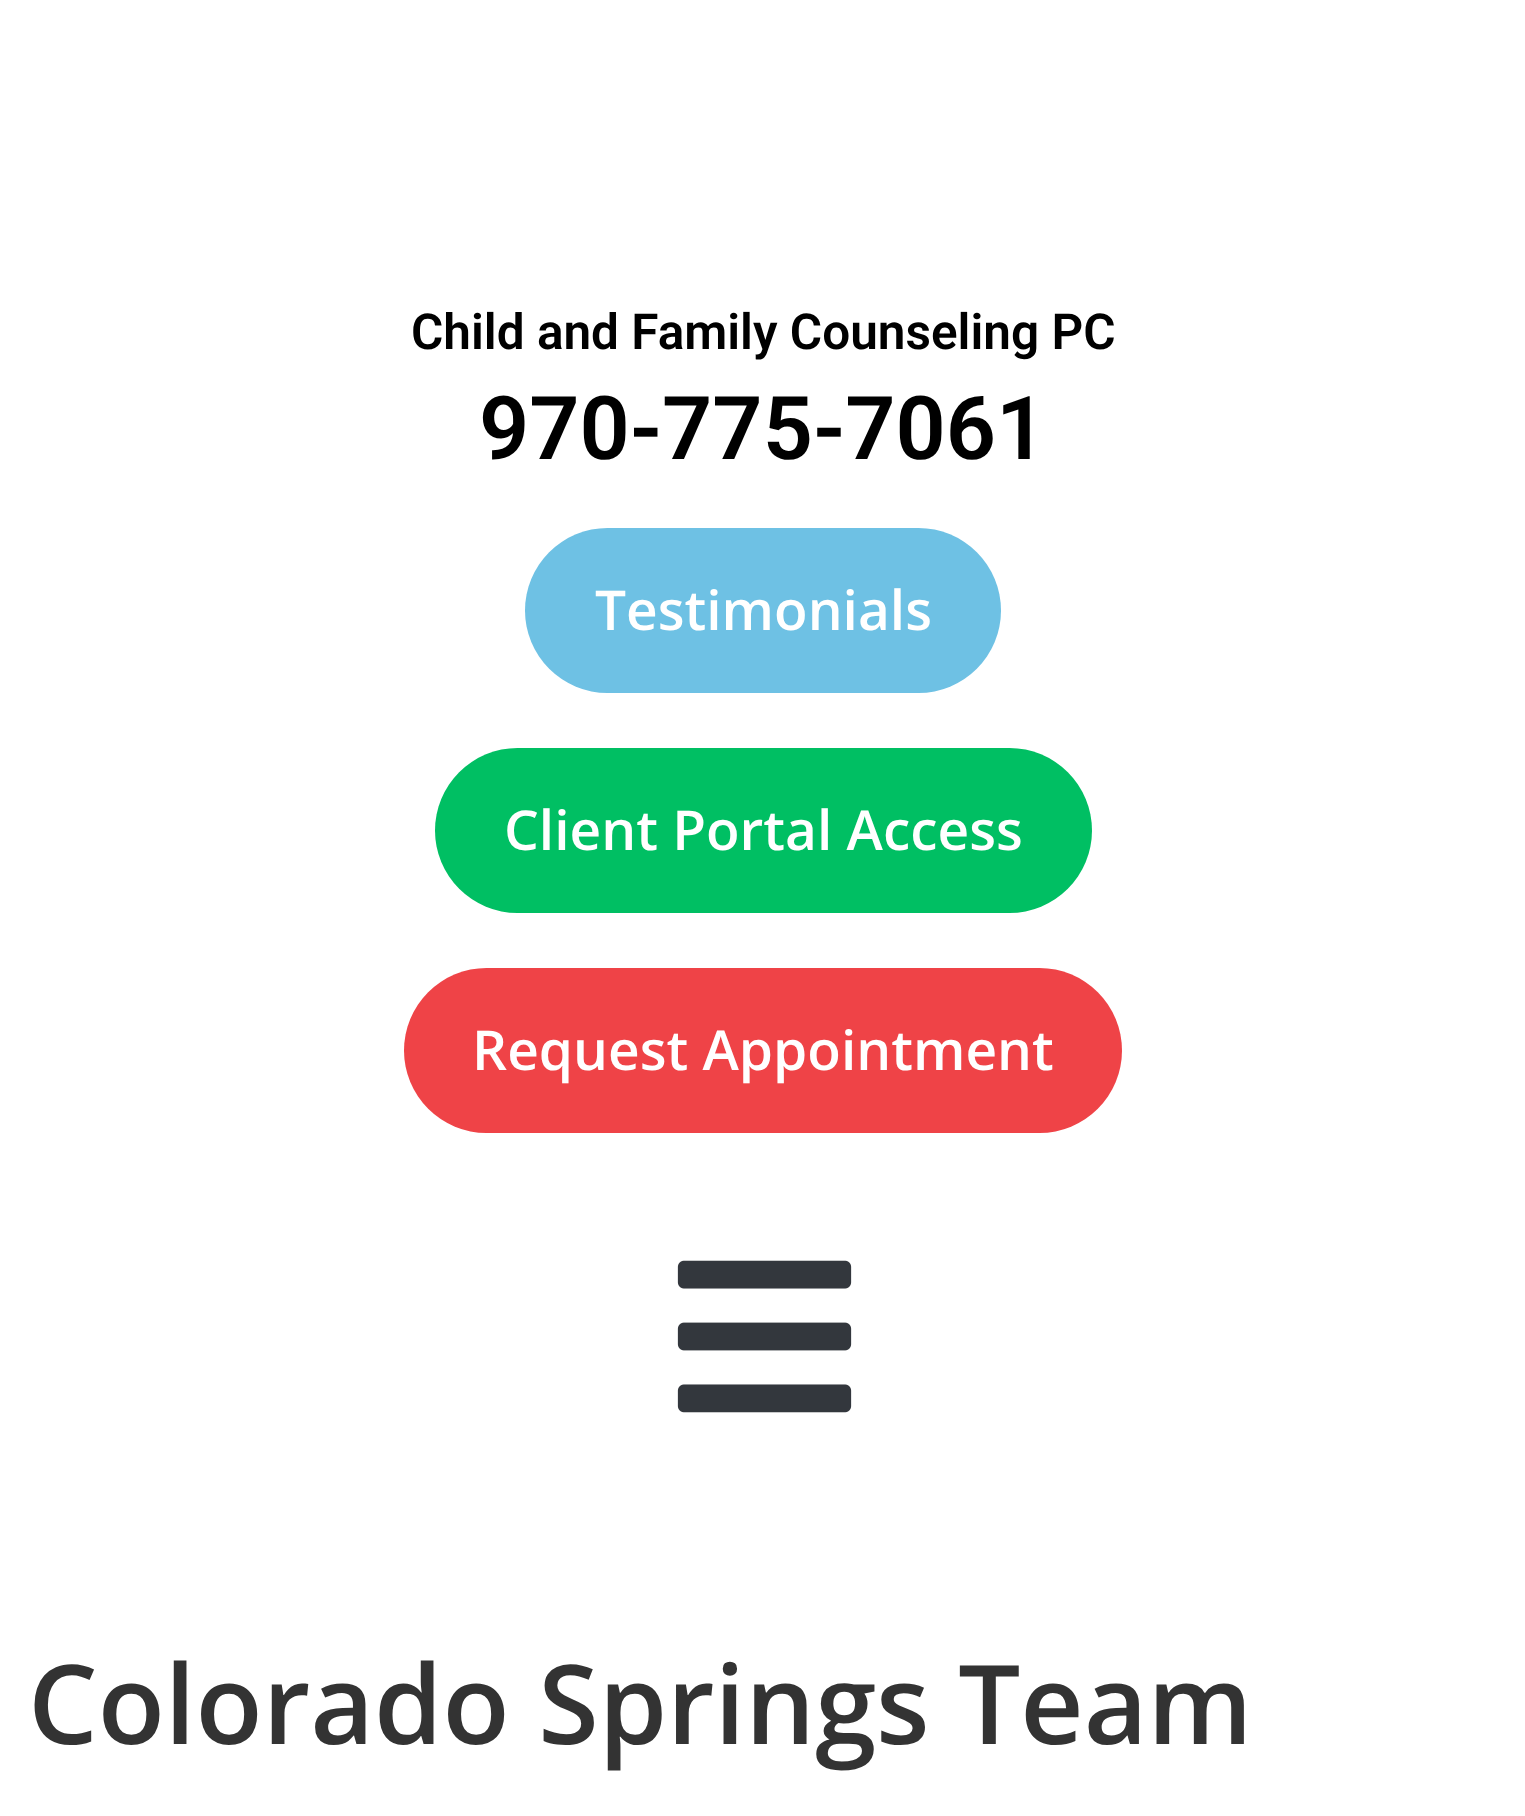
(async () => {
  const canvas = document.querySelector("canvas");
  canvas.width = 1525;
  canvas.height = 1816;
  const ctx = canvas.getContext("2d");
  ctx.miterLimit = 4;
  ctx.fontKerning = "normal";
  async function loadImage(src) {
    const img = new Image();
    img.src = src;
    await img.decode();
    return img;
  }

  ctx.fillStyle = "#ffffff";
  ctx.fillRect(0, 0, 1525, 1816);
  ctx.fillStyle = "#6ec1e4";
  ctx.beginPath();
  ctx.roundRect(525, 528, 476, 165, 82.5);
  ctx.fill();
  ctx.fillStyle = "#00bf63";
  ctx.beginPath();
  ctx.roundRect(435, 748, 657, 165, 82.5);
  ctx.fill();
  ctx.fillStyle = "#ef4347";
  ctx.beginPath();
  ctx.roundRect(404, 968, 718, 165, 82.5);
  ctx.fill();
  ctx.drawImage(await loadImage("img/1.png"), 677, 1260, 175, 153);
  ctx.font = "600 49.5px Roboto";
  ctx.fillStyle = "#000000";
  ctx.fillText("Child and Family Counseling PC", 411, 349);
  ctx.font = "600 88px Roboto";
  ctx.fillText("970-775-7061", 479, 459);
  ctx.font = "600 55px Open Sans";
  ctx.fillStyle = "#ffffff";
  for (const [text, x, y] of [
    ["Testimonials", 595, 630],
    ["Client Portal Access", 504, 850],
    ["Request Appointment", 472, 1070],
  ]) {
    ctx.fillText(text, x, y);
  }
  ctx.font = "600 110px Open Sans";
  ctx.fillStyle = "#333333";
  ctx.fillText("Colorado Springs Team", 28, 1744);
})();
